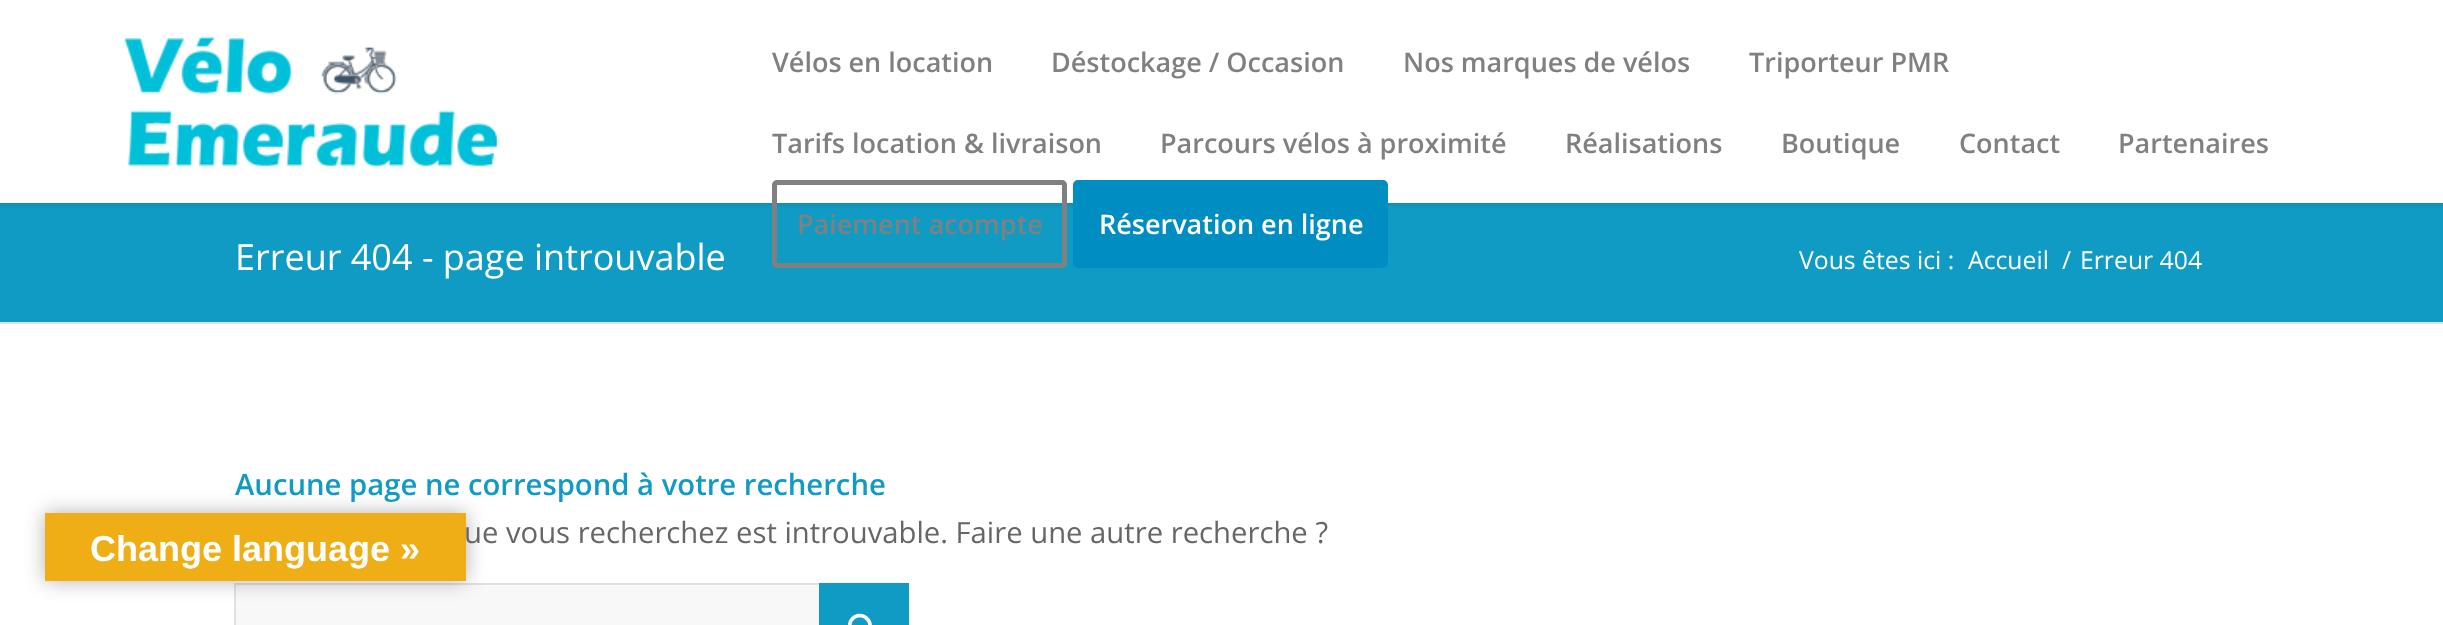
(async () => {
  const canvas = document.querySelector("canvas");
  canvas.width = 2443;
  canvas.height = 625;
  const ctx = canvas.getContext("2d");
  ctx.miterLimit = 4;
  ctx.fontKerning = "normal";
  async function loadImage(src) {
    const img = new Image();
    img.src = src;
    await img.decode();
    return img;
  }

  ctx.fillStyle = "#ffffff";
  ctx.fillRect(0, 0, 2443, 625);
  ctx.fillStyle = "#109bc5";
  ctx.fillRect(0, 203, 2443, 119);
  ctx.fillStyle = "rgba(0, 0, 0, 0.1)";
  ctx.filter = "blur(2px)";
  ctx.beginPath();
  ctx.rect(-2, -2, 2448, 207);
  ctx.fill();
  ctx.filter = "none";
  ctx.fillStyle = "#ffffff";
  ctx.fillRect(0, 0, 2443, 203);
  ctx.drawImage(await loadImage("img/1.png"), 124, 36, 375, 131);
  ctx.beginPath();
  ctx.roundRect(774.5, 182.5, 290, 83, 2.5);
  ctx.strokeStyle = "#808080";
  ctx.lineWidth = 5;
  ctx.stroke();
  ctx.fillStyle = "#008ec2";
  ctx.beginPath();
  ctx.roundRect(1075.5, 182.5, 310, 83, 2.5);
  ctx.fill();
  ctx.strokeStyle = "#008ec2";
  ctx.stroke();
  ctx.fillStyle = "#e1e1e1";
  ctx.fillRect(0, 322, 2443, 2);
  ctx.fillStyle = "#f8f8f8";
  ctx.fillRect(236, 585, 583, 40);
  ctx.strokeStyle = "#e1e1e1";
  ctx.lineWidth = 2;
  ctx.strokeRect(235, 584, 673, 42);
  ctx.fillStyle = "#109bc5";
  ctx.fillRect(819, 583, 90, 42);
  ctx.drawImage(await loadImage("img/2.png"), 848, 613, 24, 12);
  ctx.fillStyle = "rgba(0, 0, 0, 0.3)";
  ctx.filter = "blur(10px)";
  ctx.beginPath();
  ctx.rect(45, 513, 421, 68);
  ctx.fill();
  ctx.filter = "none";
  ctx.fillStyle = "#efae15";
  ctx.fillRect(45, 513, 421, 68);
  ctx.font = "600 27px Open Sans";
  ctx.fillStyle = "#808080";
  for (const [text, x, y] of [
    ["Vélos en location", 772, 72],
    ["Déstockage / Occasion", 1051, 72],
    ["Nos marques de vélos", 1403, 72],
    ["Triporteur PMR", 1749, 72],
    ["Tarifs location & livraison", 772, 153],
    ["Parcours vélos à proximité", 1160, 153],
    ["Réalisations", 1565, 153],
    ["Boutique", 1781, 153],
    ["Contact", 1959, 153],
    ["Partenaires", 2118, 153],
    ["Paiement acompte", 797, 234],
  ]) {
    ctx.fillText(text, x, y);
  }
  ctx.fillStyle = "#ffffff";
  ctx.fillText("Réservation en ligne", 1099, 234);
  ctx.font = "36px Open Sans";
  ctx.fillText("Erreur 404 - page introuvable", 235, 270);
  ctx.font = "24.75px Open Sans";
  for (const [text, x, y] of [
    ["Vous êtes ici :", 1799, 269],
    ["Accueil", 1968, 269],
    ["/", 2062, 269],
    ["Erreur 404", 2080, 269],
  ]) {
    ctx.fillText(text, x, y);
  }
  ctx.font = "600 29.25px Open Sans";
  ctx.fillStyle = "#109bc5";
  ctx.fillText("Aucune page ne correspond à votre recherche", 235, 495);
  ctx.font = "29.25px Open Sans";
  ctx.fillStyle = "#666666";
  ctx.fillText("ue vous recherchez est introuvable. Faire une autre recherche ?", 464, 543);
  ctx.font = "bold 36px Liberation Sans";
  ctx.fillStyle = "#ffffff";
  ctx.fillText("Change language »", 90, 561);
})();
